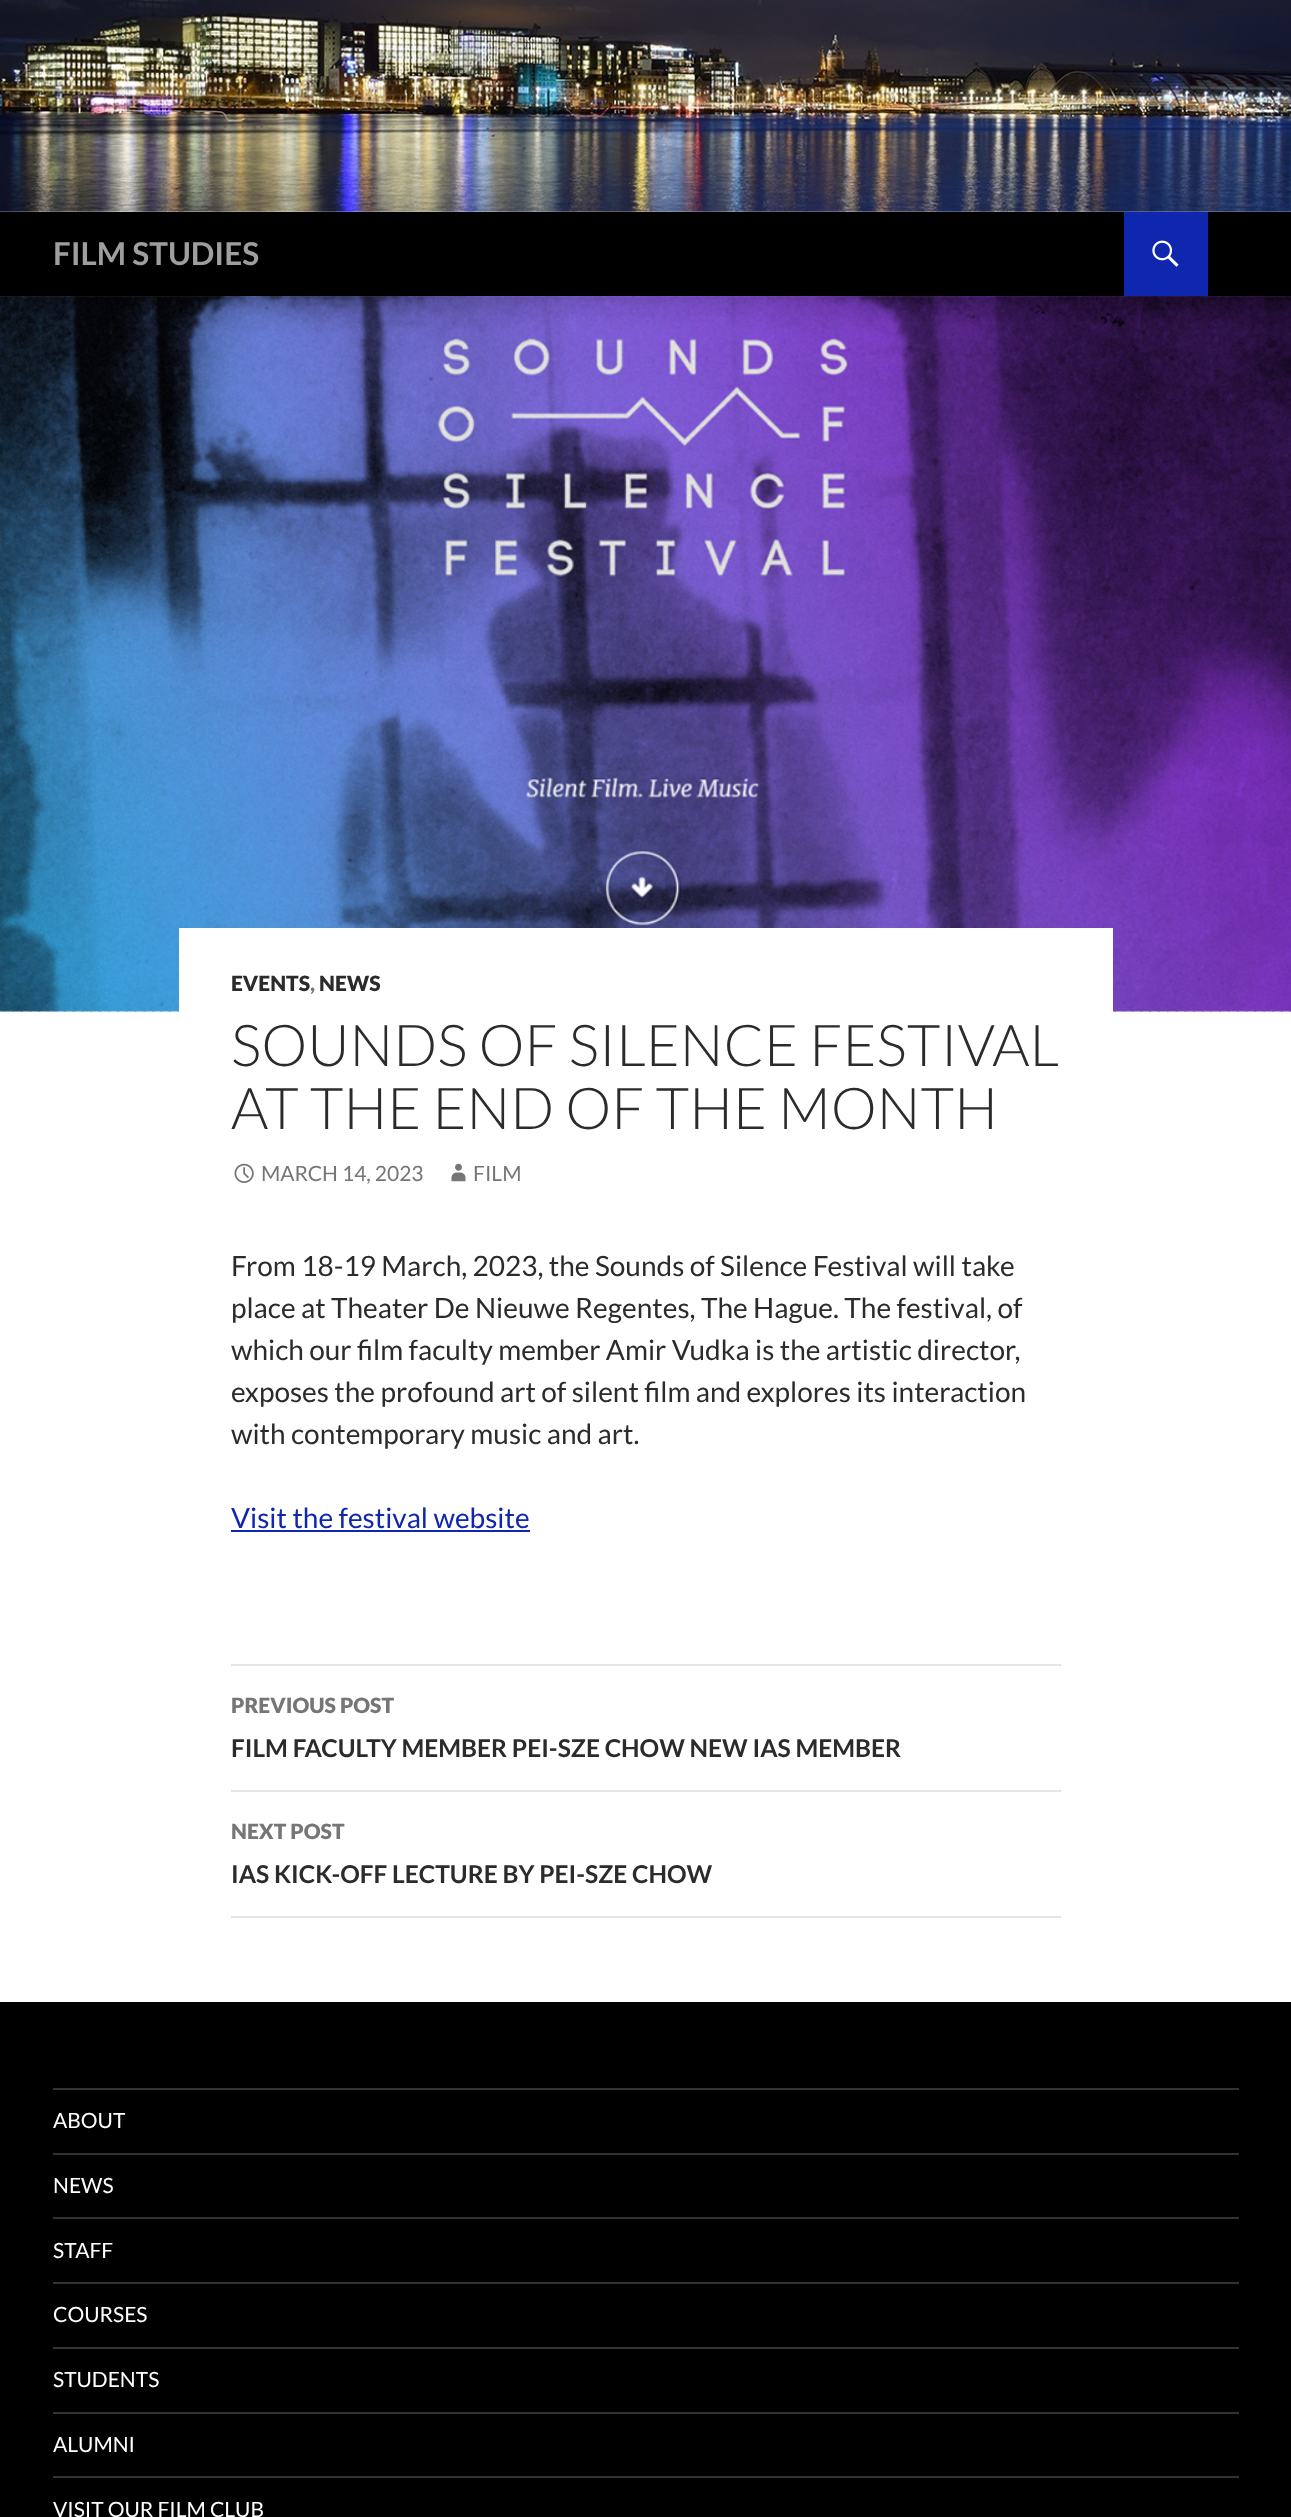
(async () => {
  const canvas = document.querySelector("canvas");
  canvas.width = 1291;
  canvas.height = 2517;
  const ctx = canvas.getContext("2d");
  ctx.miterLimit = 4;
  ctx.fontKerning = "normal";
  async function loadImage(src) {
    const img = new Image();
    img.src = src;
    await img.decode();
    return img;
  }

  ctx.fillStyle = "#ffffff";
  ctx.fillRect(0, 0, 1291, 2517);
  ctx.drawImage(await loadImage("img/1.png"), 0, 0, 1291, 212);
  ctx.fillStyle = "#000000";
  ctx.fillRect(0, 212, 1291, 84);
  ctx.fillStyle = "#0f27af";
  ctx.fillRect(1124, 212, 84, 84);
  ctx.drawImage(await loadImage("img/2.png"), 1152, 240, 27, 27);
  ctx.fillStyle = "#b2b2b2";
  ctx.fillRect(2, 1011, 1289, 1);
  ctx.drawImage(await loadImage("img/3.png"), 0, 1011, 1290, 1);
  ctx.drawImage(await loadImage("img/4.png"), 0, 296, 1291, 716);
  ctx.fillStyle = "#ffffff";
  ctx.fillRect(179, 928, 934, 84);
  ctx.drawImage(await loadImage("img/5.png"), 234, 1163, 20, 20);
  ctx.drawImage(await loadImage("img/6.png"), 451, 1163, 15, 19);
  for (const [x, y, w, h, color] of [
    [231, 1530, 299, 2, "#0f27af"],
    [231, 1664, 830, 2, "#e6e6e6"],
    [231, 1790, 830, 2, "#e6e6e6"],
    [231, 1916, 830, 2, "#e6e6e6"],
    [0, 2002, 1291, 515, "#000000"],
    [53, 2088, 1186, 2, "#333333"],
    [53, 2153, 1186, 2, "#333333"],
    [53, 2217, 1186, 2, "#333333"],
    [53, 2282, 1186, 2, "#333333"],
    [53, 2347, 1186, 2, "#333333"],
    [53, 2412, 1186, 2, "#333333"],
    [53, 2476, 1186, 2, "#333333"],
  ]) {
    ctx.fillStyle = color;
    ctx.fillRect(x, y, w, h);
  }
  ctx.font = "bold 31.5px Lato";
  ctx.fillStyle = "#9e9e9e";
  ctx.fillText("FILM STUDIES", 53, 265);
  ctx.font = "900 21px Lato";
  ctx.fillStyle = "#2b2b2b";
  ctx.fillText("EVENTS", 231, 991);
  ctx.fillStyle = "#767676";
  ctx.fillText(",", 310, 991);
  ctx.fillStyle = "#2b2b2b";
  ctx.fillText("NEWS", 319, 991);
  ctx.font = "300 57.75px Lato";
  ctx.fillText("SOUNDS OF SILENCE FESTIVAL", 231, 1066);
  ctx.fillText("AT THE END OF THE MONTH", 231, 1129);
  ctx.font = "21px Lato";
  ctx.fillStyle = "#767676";
  ctx.fillText("MARCH 14, 2023", 261, 1181);
  ctx.fillText("FILM", 473, 1181);
  ctx.font = "28px Lato";
  ctx.fillStyle = "#2b2b2b";
  for (const [text, x, y] of [
    ["From 18-19 March, 2023, the Sounds of Silence Festival will take", 231, 1276],
    ["place at Theater De Nieuwe Regentes, The Hague. The festival, of", 231, 1318],
    ["which our film faculty member Amir Vudka is the artistic director,", 231, 1360],
    ["exposes the profound art of silent film and explores its interaction", 231, 1402],
    ["with contemporary music and art.", 231, 1444],
  ]) {
    ctx.fillText(text, x, y);
  }
  ctx.fillStyle = "#0f27af";
  ctx.fillText("Visit the festival website", 231, 1528);
  ctx.font = "900 21px Lato";
  ctx.fillStyle = "#767676";
  ctx.fillText("PREVIOUS POST", 231, 1713);
  ctx.font = "bold 24.5px Lato";
  ctx.fillStyle = "#2b2b2b";
  ctx.fillText("FILM FACULTY MEMBER PEI-SZE CHOW NEW IAS MEMBER", 231, 1757);
  ctx.font = "900 21px Lato";
  ctx.fillStyle = "#767676";
  ctx.fillText("NEXT POST", 231, 1839);
  ctx.font = "bold 24.5px Lato";
  ctx.fillStyle = "#2b2b2b";
  ctx.fillText("IAS KICK-OFF LECTURE BY PEI-SZE CHOW", 231, 1883);
  ctx.font = "21px Lato";
  ctx.fillStyle = "#ffffff";
  for (const [text, x, y] of [
    ["ABOUT", 53, 2128],
    ["NEWS", 53, 2193],
    ["STAFF", 53, 2258],
    ["COURSES", 53, 2322],
    ["STUDENTS", 53, 2387],
    ["ALUMNI", 53, 2452],
    ["VISIT OUR FILM CLUB", 53, 2517],
  ]) {
    ctx.fillText(text, x, y);
  }
})();
